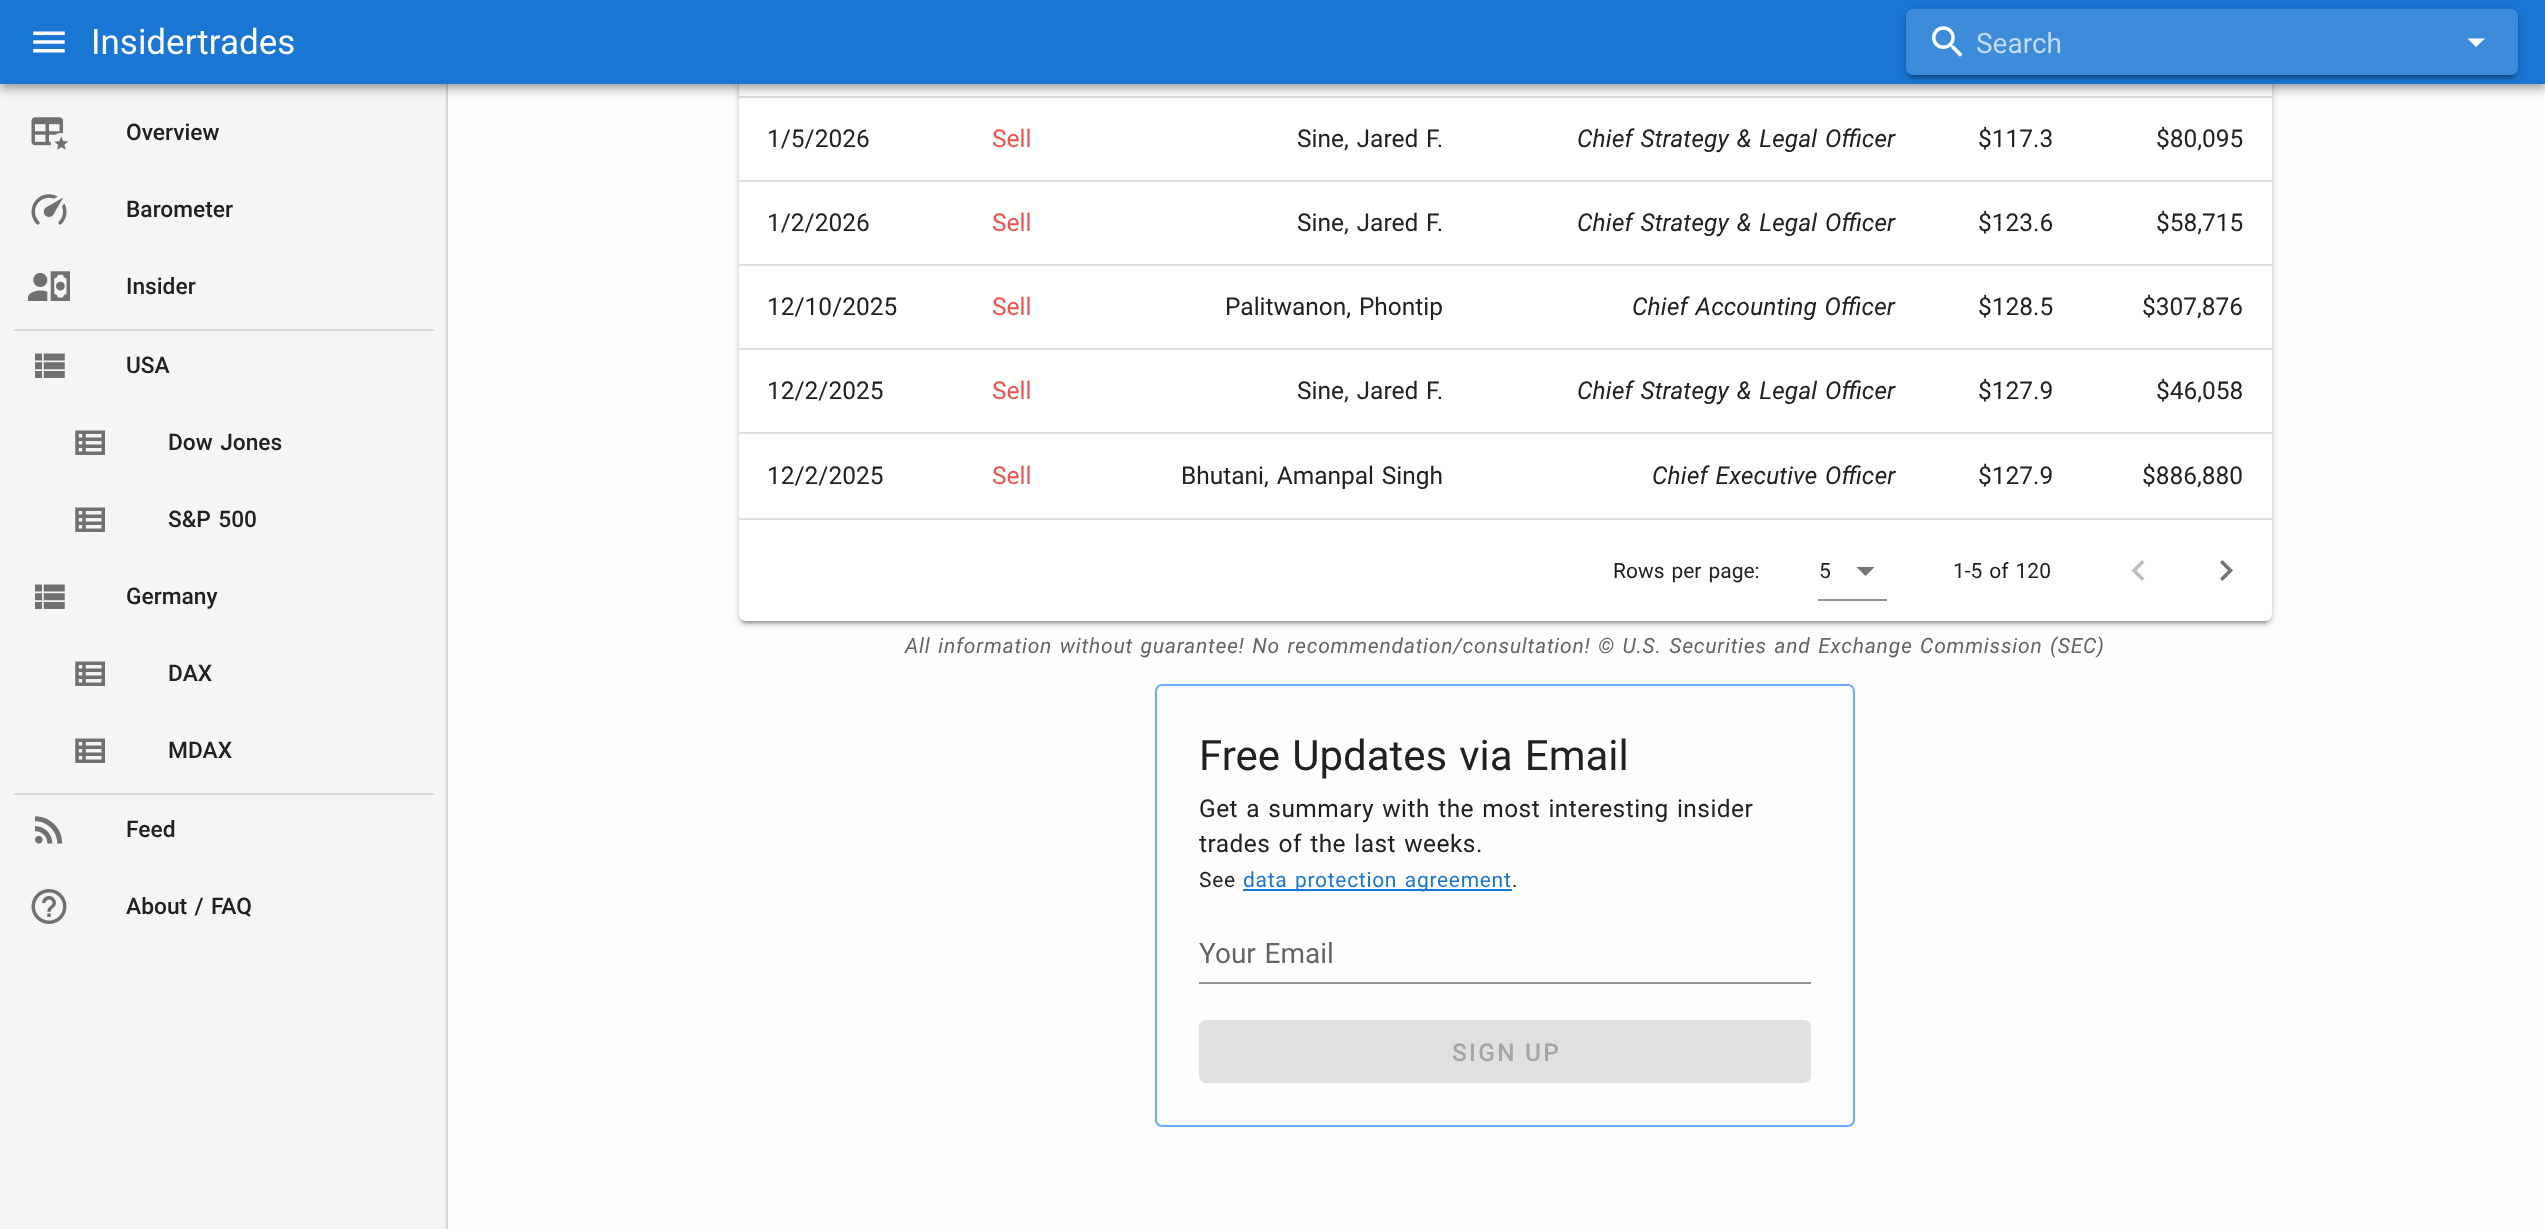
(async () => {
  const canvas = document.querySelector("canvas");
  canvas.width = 2545;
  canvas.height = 1229;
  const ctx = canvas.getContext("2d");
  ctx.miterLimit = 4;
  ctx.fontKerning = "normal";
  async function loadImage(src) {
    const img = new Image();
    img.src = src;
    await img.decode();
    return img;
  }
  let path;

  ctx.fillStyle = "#fdfdfd";
  ctx.fillRect(0, 0, 2545, 1229);
  ctx.fillStyle = "#f5f5f5";
  ctx.fillRect(0, 84, 446, 1145);
  ctx.fillStyle = "#d8d8d8";
  ctx.fillRect(446, 84, 2, 1145);
  ctx.fillStyle = "rgba(0, 0, 0, 0.12)";
  ctx.filter = "blur(4.5px)";
  ctx.beginPath();
  ctx.roundRect(739, 16, 1533, 607, 7);
  ctx.fill();
  ctx.filter = "none";
  ctx.fillStyle = "rgba(0, 0, 0, 0.14)";
  ctx.filter = "blur(2px)";
  ctx.beginPath();
  ctx.roundRect(739, 18, 1533, 607, 7);
  ctx.fill();
  ctx.filter = "none";
  ctx.fillStyle = "rgba(0, 0, 0, 0.2)";
  ctx.filter = "blur(1px)";
  ctx.beginPath();
  ctx.roundRect(742, 23, 1526, 600, 4);
  ctx.fill();
  ctx.filter = "none";
  ctx.fillStyle = "#ffffff";
  ctx.beginPath();
  ctx.roundRect(739, 14, 1533, 607, 7);
  ctx.fill();
  ctx.fillStyle = "#e0e0e0";
  ctx.fillRect(739, 96, 1533, 2);
  ctx.fillStyle = "rgba(0, 0, 0, 0.12)";
  ctx.filter = "blur(9px)";
  ctx.beginPath();
  ctx.rect(0, 2, 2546, 84);
  ctx.fill();
  ctx.filter = "none";
  ctx.fillStyle = "rgba(0, 0, 0, 0.14)";
  ctx.filter = "blur(4.5px)";
  ctx.beginPath();
  ctx.rect(0, 7, 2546, 84);
  ctx.fill();
  ctx.filter = "none";
  ctx.fillStyle = "rgba(0, 0, 0, 0.2)";
  ctx.filter = "blur(3.5px)";
  ctx.beginPath();
  ctx.rect(2, 5, 2543, 81);
  ctx.fill();
  ctx.filter = "none";
  ctx.fillStyle = "#1976d2";
  ctx.fillRect(0, 0, 2545, 84);
  ctx.drawImage(await loadImage("img/1.png"), 33, 31, 32, 22);
  ctx.save();
  path = new Path2D("M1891 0H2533V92H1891ZM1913 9H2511C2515 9 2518 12 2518 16V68C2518 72 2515 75 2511 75H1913C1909 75 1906 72 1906 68V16C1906 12 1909 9 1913 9Z");
  ctx.clip(path, "evenodd");
  ctx.fillStyle = "rgba(0, 0, 0, 0.12)";
  ctx.filter = "blur(4.5px)";
  ctx.beginPath();
  ctx.roundRect(1906, 11, 612, 66, 7);
  ctx.fill();
  ctx.filter = "none";
  ctx.restore();
  ctx.save();
  path = new Path2D("M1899 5H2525V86H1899ZM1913 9H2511C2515 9 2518 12 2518 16V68C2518 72 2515 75 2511 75H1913C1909 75 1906 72 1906 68V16C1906 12 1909 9 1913 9Z");
  ctx.clip(path, "evenodd");
  ctx.fillStyle = "rgba(0, 0, 0, 0.14)";
  ctx.filter = "blur(2px)";
  ctx.beginPath();
  ctx.roundRect(1906, 12, 612, 67, 7);
  ctx.fill();
  ctx.filter = "none";
  ctx.restore();
  ctx.save();
  path = new Path2D("M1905 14H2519V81H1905ZM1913 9H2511C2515 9 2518 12 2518 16V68C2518 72 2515 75 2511 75H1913C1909 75 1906 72 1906 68V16C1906 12 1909 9 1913 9Z");
  ctx.clip(path, "evenodd");
  ctx.fillStyle = "rgba(0, 0, 0, 0.2)";
  ctx.filter = "blur(1px)";
  ctx.beginPath();
  ctx.roundRect(1909, 18, 606, 59, 4);
  ctx.fill();
  ctx.filter = "none";
  ctx.restore();
  ctx.fillStyle = "rgba(255, 255, 255, 0.16)";
  ctx.beginPath();
  ctx.roundRect(1906, 9, 612, 66, 7);
  ctx.fill();
  ctx.drawImage(await loadImage("img/2.png"), 1932, 26, 31, 31);
  ctx.fillStyle = "#ffffff";
  path = new Path2D("M2467.5 38.5L2476 47L2485 38.5Z");
  ctx.fill(path);
  ctx.drawImage(await loadImage("img/3.png"), 31, 117, 38, 33);
  ctx.drawImage(await loadImage("img/4.png"), 31, 194, 36, 31);
  ctx.drawImage(await loadImage("img/5.png"), 28, 271, 42, 30);
  ctx.fillStyle = "#d8d8d8";
  ctx.fillRect(14, 329, 420, 2);
  ctx.drawImage(await loadImage("img/6.png"), 35, 353, 30, 25);
  ctx.drawImage(await loadImage("img/7.png"), 75, 430, 30, 25);
  ctx.drawImage(await loadImage("img/7.png"), 75, 507, 30, 25);
  ctx.drawImage(await loadImage("img/6.png"), 35, 584, 30, 25);
  ctx.drawImage(await loadImage("img/7.png"), 75, 661, 30, 25);
  ctx.drawImage(await loadImage("img/7.png"), 75, 738, 30, 25);
  ctx.fillRect(14, 793, 420, 2);
  ctx.drawImage(await loadImage("img/8.png"), 35, 816, 28, 28);
  ctx.drawImage(await loadImage("img/9.png"), 31, 889, 36, 35);
  for (const [x, y, w, h, color] of [
    [739, 180, 1533, 2, "#e0e0e0"],
    [739, 264, 1533, 2, "#e0e0e0"],
    [739, 348, 1533, 2, "#e0e0e0"],
    [739, 432, 1533, 2, "#e0e0e0"],
    [739, 518, 1533, 2, "#e0e0e0"],
  ]) {
    ctx.fillStyle = color;
    ctx.fillRect(x, y, w, h);
  }
  ctx.fillStyle = "#757575";
  path = new Path2D("M1856.5 567L1865.5 576L1874.5 567Z");
  ctx.fill(path);
  ctx.fillStyle = "#949494";
  ctx.fillRect(1818, 599, 69, 2);
  ctx.fillStyle = "#bdbdbd";
  path = new Path2D("M2144.5 578.5L2136.5 570.5L2144.5 562.5L2142 560L2131.5 570.5L2142 581Z");
  ctx.fill(path);
  ctx.fillStyle = "#757575";
  path = new Path2D("M2220 578.5L2228 570.5L2220 562.5L2222.5 560L2233 570.5L2222.5 581Z");
  ctx.fill(path);
  ctx.beginPath();
  ctx.roundRect(1156, 685, 698, 441, 6);
  ctx.strokeStyle = "#6aaaff";
  ctx.lineWidth = 2;
  ctx.stroke();
  ctx.fillStyle = "#1976d2";
  ctx.fillRect(1243, 889, 269, 2);
  ctx.fillStyle = "#949494";
  ctx.fillRect(1199, 982, 612, 2);
  ctx.fillStyle = "#e0e0e0";
  ctx.beginPath();
  ctx.roundRect(1199, 1020, 612, 63, 7);
  ctx.fill();
  ctx.font = "35px Roboto";
  ctx.fillStyle = "#ffffff";
  ctx.fillText("Insidertrades", 91, 54);
  ctx.font = "28px Roboto";
  ctx.fillStyle = "#c5dcf4";
  ctx.fillText("Search", 1976, 53);
  ctx.font = "500 22.75px Roboto";
  ctx.fillStyle = "#212121";
  for (const [text, x, y] of [
    ["Overview", 126, 140],
    ["Barometer", 126, 217],
    ["Insider", 126, 294],
    ["USA", 126, 373],
  ]) {
    ctx.fillText(text, x, y);
  }
  ctx.wordSpacing = "1.75px";
  ctx.fillText("Dow Jones", 168, 450);
  ctx.fillText("S&P 500", 168, 527);
  ctx.wordSpacing = "0px";
  for (const [text, x, y] of [
    ["Germany", 126, 604],
    ["DAX", 168, 681],
    ["MDAX", 168, 758],
    ["Feed", 126, 837],
  ]) {
    ctx.fillText(text, x, y);
  }
  ctx.wordSpacing = "1.75px";
  ctx.fillText("About / FAQ", 126, 914);
  ctx.wordSpacing = "0px";
  ctx.font = "24.5px Roboto";
  ctx.fillText("1/5/2026", 767, 147);
  ctx.fillStyle = "#ef5350";
  ctx.fillText("Sell", 992, 147);
  ctx.wordSpacing = "1.75px";
  ctx.fillStyle = "#212121";
  ctx.fillText("Sine, Jared F.", 1297, 147);
  ctx.font = "italic 24.5px Roboto";
  ctx.fillText("Chief Strategy & Legal Officer", 1577, 147);
  ctx.wordSpacing = "0px";
  ctx.font = "24.5px Roboto";
  for (const [text, x, y] of [
    ["$117.3", 1978, 147],
    ["$80,095", 2156, 147],
    ["1/2/2026", 767, 231],
  ]) {
    ctx.fillText(text, x, y);
  }
  ctx.fillStyle = "#ef5350";
  ctx.fillText("Sell", 992, 231);
  ctx.wordSpacing = "1.75px";
  ctx.fillStyle = "#212121";
  ctx.fillText("Sine, Jared F.", 1297, 231);
  ctx.font = "italic 24.5px Roboto";
  ctx.fillText("Chief Strategy & Legal Officer", 1577, 231);
  ctx.wordSpacing = "0px";
  ctx.font = "24.5px Roboto";
  for (const [text, x, y] of [
    ["$123.6", 1978, 231],
    ["$58,715", 2156, 231],
    ["12/10/2025", 767, 315],
  ]) {
    ctx.fillText(text, x, y);
  }
  ctx.fillStyle = "#ef5350";
  ctx.fillText("Sell", 992, 315);
  ctx.wordSpacing = "1.75px";
  ctx.fillStyle = "#212121";
  ctx.fillText("Palitwanon, Phontip", 1225, 315);
  ctx.font = "italic 24.5px Roboto";
  ctx.fillText("Chief Accounting Officer", 1632, 315);
  ctx.wordSpacing = "0px";
  ctx.font = "24.5px Roboto";
  for (const [text, x, y] of [
    ["$128.5", 1978, 315],
    ["$307,876", 2142, 315],
    ["12/2/2025", 767, 399],
  ]) {
    ctx.fillText(text, x, y);
  }
  ctx.fillStyle = "#ef5350";
  ctx.fillText("Sell", 992, 399);
  ctx.wordSpacing = "1.75px";
  ctx.fillStyle = "#212121";
  ctx.fillText("Sine, Jared F.", 1297, 399);
  ctx.font = "italic 24.5px Roboto";
  ctx.fillText("Chief Strategy & Legal Officer", 1577, 399);
  ctx.wordSpacing = "0px";
  ctx.font = "24.5px Roboto";
  for (const [text, x, y] of [
    ["$127.9", 1978, 399],
    ["$46,058", 2156, 399],
    ["12/2/2025", 767, 484],
  ]) {
    ctx.fillText(text, x, y);
  }
  ctx.fillStyle = "#ef5350";
  ctx.fillText("Sell", 992, 484);
  ctx.wordSpacing = "1.75px";
  ctx.fillStyle = "#212121";
  ctx.fillText("Bhutani, Amanpal Singh", 1181, 484);
  ctx.font = "italic 24.5px Roboto";
  ctx.fillText("Chief Executive Officer", 1652, 484);
  ctx.wordSpacing = "0px";
  ctx.font = "24.5px Roboto";
  ctx.fillText("$127.9", 1978, 484);
  ctx.fillText("$886,880", 2142, 484);
  ctx.wordSpacing = "1.75px";
  ctx.font = "21px Roboto";
  ctx.fillText("Rows per page:", 1613, 578);
  ctx.wordSpacing = "0px";
  ctx.fillText("5", 1819, 578);
  ctx.wordSpacing = "1.75px";
  ctx.fillText("1-5 of 120", 1953, 578);
  ctx.letterSpacing = "0.7px";
  ctx.font = "italic 21px Roboto";
  ctx.fillStyle = "#656565";
  ctx.fillText("All information without guarantee! No recommendation/consultation!", 905, 653);
  ctx.fillText("© U.S. Securities and Exchange Commission (SEC)", 1598, 653);
  ctx.letterSpacing = "0px";
  ctx.font = "42px Roboto";
  ctx.fillStyle = "#212121";
  ctx.fillText("Free Updates via Email", 1199, 770);
  ctx.letterSpacing = "0.45px";
  ctx.font = "24.5px Roboto";
  ctx.fillText("Get a summary with the most interesting insider", 1199, 817);
  ctx.fillText("trades of the last weeks.", 1199, 852);
  ctx.letterSpacing = "0.7px";
  ctx.wordSpacing = "0px";
  ctx.font = "21px Roboto";
  ctx.fillText("See", 1199, 887);
  ctx.wordSpacing = "1.75px";
  ctx.fillStyle = "#1976d2";
  ctx.fillText("data protection agreement", 1243, 887);
  ctx.wordSpacing = "0px";
  ctx.fillStyle = "#212121";
  ctx.fillText(".", 1512, 887);
  ctx.letterSpacing = "0px";
  ctx.wordSpacing = "1.75px";
  ctx.font = "28px Roboto";
  ctx.fillStyle = "#656565";
  ctx.fillText("Your Email", 1199, 963);
  ctx.letterSpacing = "2.25px";
  ctx.wordSpacing = "0px";
  ctx.font = "500 24.5px Roboto";
  ctx.fillStyle = "#a6a6a6";
  ctx.fillText("SIGN UP", 1452, 1061);
})();
